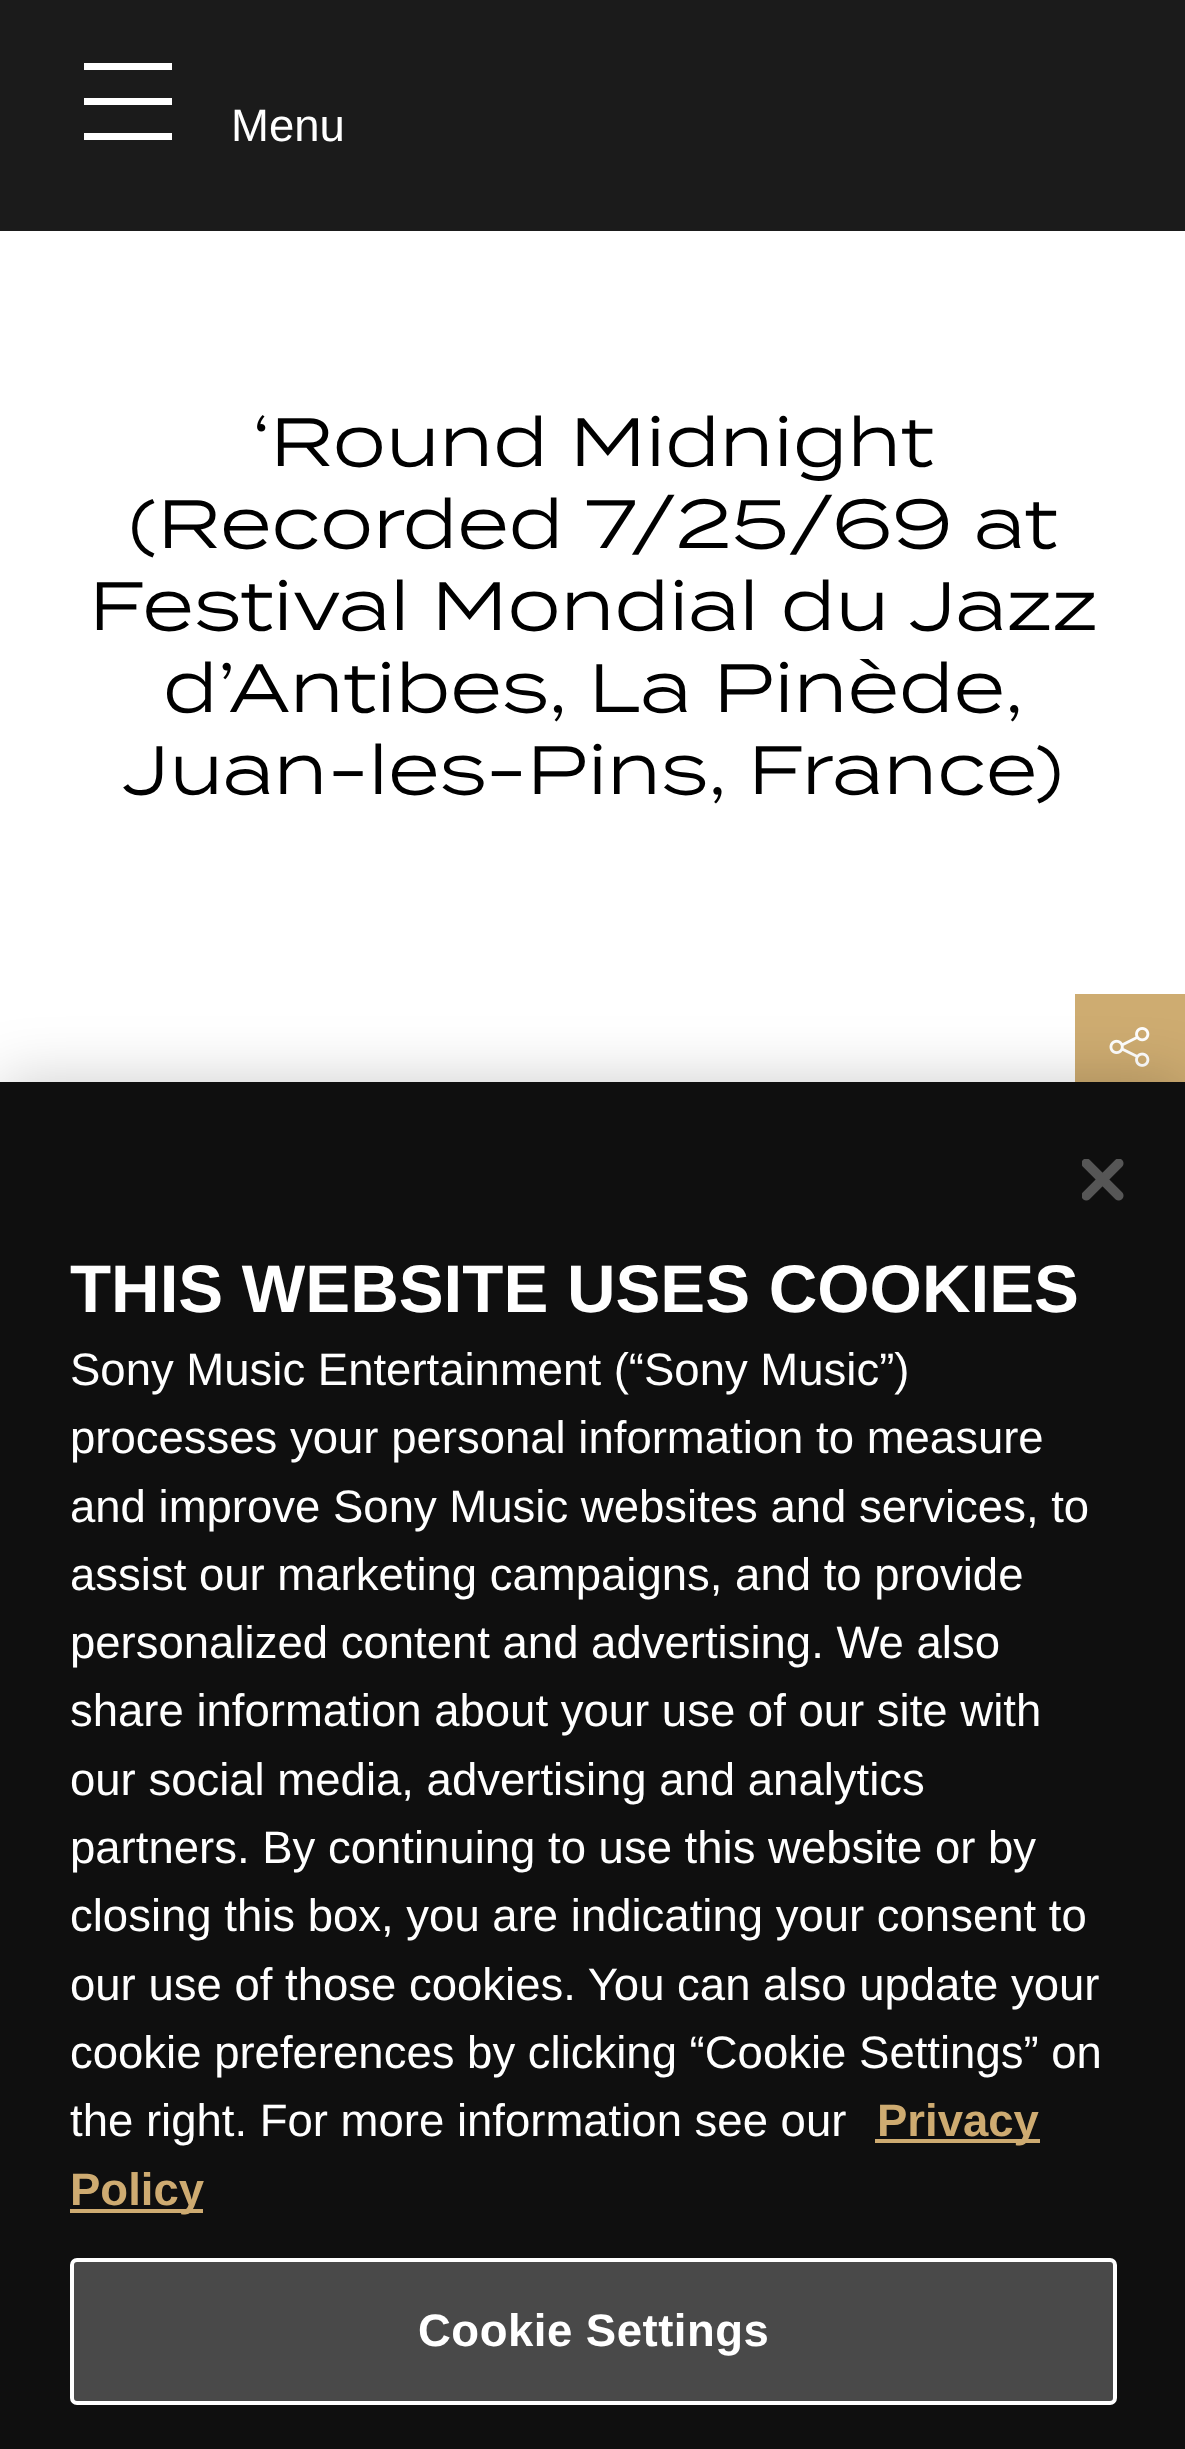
(async () => {
  const canvas = document.querySelector("canvas");
  canvas.width = 1185;
  canvas.height = 2449;
  const ctx = canvas.getContext("2d");
  ctx.miterLimit = 4;
  ctx.fontKerning = "normal";
  async function loadImage(src) {
    const img = new Image();
    img.src = src;
    await img.decode();
    return img;
  }

  ctx.fillStyle = "#ffffff";
  ctx.fillRect(0, 0, 1185, 2449);
  for (const [x, y, w, h, color] of [
    [0, 0, 1185, 231, "#1b1b1b"],
    [84, 133, 88, 7, "#ffffff"],
    [84, 63, 88, 7, "#ffffff"],
    [84, 98, 88, 7, "#ffffff"],
    [1075, 994, 110, 88, "#ceac71"],
  ]) {
    ctx.fillStyle = color;
    ctx.fillRect(x, y, w, h);
  }
  ctx.drawImage(await loadImage("img/1.png"), 1109, 1027, 41, 40);
  ctx.fillStyle = "rgba(0, 0, 0, 0.2)";
  ctx.filter = "blur(31.5px)";
  ctx.beginPath();
  ctx.rect(0, 1082, 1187, 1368);
  ctx.fill();
  ctx.filter = "none";
  ctx.fillStyle = "#0f0f0f";
  ctx.fillRect(0, 1082, 1185, 1367);
  ctx.drawImage(await loadImage("img/2.png"), 1082, 1159, 42, 42);
  ctx.fillStyle = "#ceab71";
  ctx.fillRect(875, 2139, 165, 4);
  ctx.fillRect(70, 2209, 133, 4);
  ctx.fillStyle = "#494949";
  ctx.beginPath();
  ctx.roundRect(72, 2260, 1043, 143, 5);
  ctx.fill();
  ctx.strokeStyle = "#ffffff";
  ctx.lineWidth = 4;
  ctx.stroke();
  ctx.font = "45.5px Liberation Sans";
  ctx.fillStyle = "#ffffff";
  ctx.fillText("Menu", 231, 141);
  ctx.font = "68.25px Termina";
  ctx.fillStyle = "#000000";
  for (const [text, x, y] of [
    ["‘Round Midnight", 252, 466],
    ["(Recorded 7/25/69 at", 128, 548],
    ["Festival Mondial du Jazz", 89, 630],
    ["d’Antibes, La Pinède,", 163, 712],
    ["Juan-les-Pins, France)", 122, 794],
  ]) {
    ctx.fillText(text, x, y);
  }
  ctx.font = "bold 67.25px Liberation Sans";
  ctx.fillStyle = "#ffffff";
  ctx.fillText("THIS WEBSITE USES COOKIES", 70, 1312);
  ctx.font = "45.5px Liberation Sans";
  for (const [text, x, y] of [
    ["Sony Music Entertainment (“Sony Music”)", 70, 1385],
    ["processes your personal information to measure", 70, 1453],
    ["and improve Sony Music websites and services, to", 70, 1522],
    ["assist our marketing campaigns, and to provide", 70, 1590],
    ["personalized content and advertising. We also", 70, 1658],
    ["share information about your use of our site with", 70, 1726],
    ["our social media, advertising and analytics", 70, 1795],
    ["partners. By continuing to use this website or by", 70, 1863],
    ["closing this box, you are indicating your consent to", 70, 1931],
    ["our use of those cookies. You can also update your", 70, 2000],
    ["cookie preferences by clicking “Cookie Settings” on", 70, 2068],
    ["the right. For more information see our", 70, 2136],
  ]) {
    ctx.fillText(text, x, y);
  }
  ctx.font = "bold 45.5px Liberation Sans";
  ctx.fillStyle = "#ceab71";
  ctx.fillText("Privacy", 877, 2136);
  ctx.fillText("Policy", 70, 2205);
  ctx.letterSpacing = "0.5px";
  ctx.fillStyle = "#ffffff";
  ctx.fillText("Cookie Settings", 418, 2346);
})();
